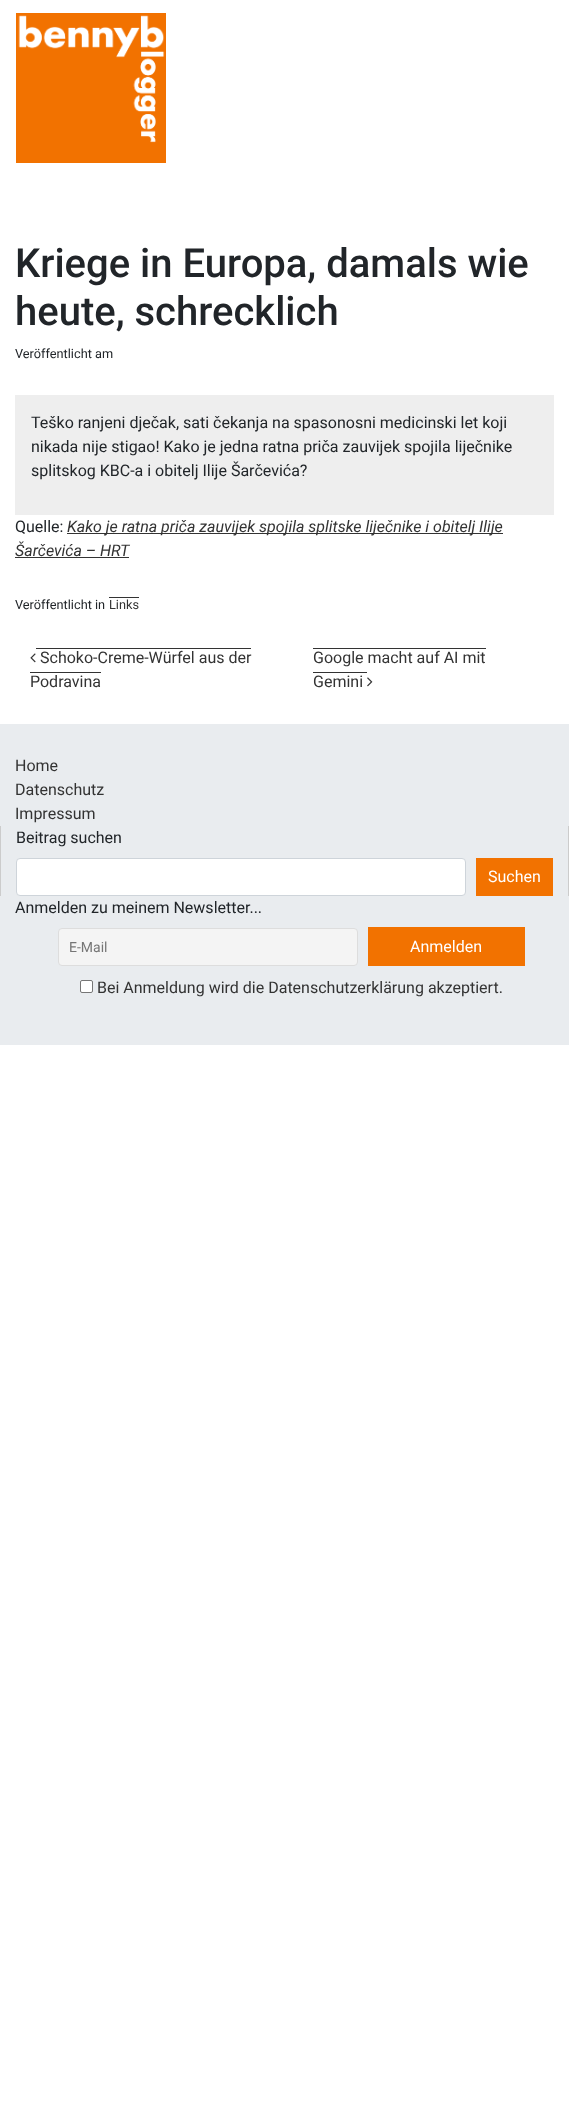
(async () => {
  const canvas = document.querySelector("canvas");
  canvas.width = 569;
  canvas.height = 2111;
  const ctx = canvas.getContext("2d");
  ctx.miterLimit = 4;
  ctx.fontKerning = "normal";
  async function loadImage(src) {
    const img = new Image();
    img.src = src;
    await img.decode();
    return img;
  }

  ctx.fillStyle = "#ffffff";
  ctx.fillRect(0, 0, 569, 2111);
  ctx.drawImage(await loadImage("img/1.png"), 16, 13, 150, 150);
  for (const [x, y, w, h, color] of [
    [15, 395, 539, 120, "#eeeeee"],
    [67, 533, 436, 1, "#333333"],
    [15, 557, 114, 1, "#333333"],
    [109, 597, 30, 1, "#333333"],
  ]) {
    ctx.fillStyle = color;
    ctx.fillRect(x, y, w, h);
  }
  ctx.drawImage(await loadImage("img/2.png"), 30, 653, 6, 10);
  for (const [x, y, w, h, color] of [
    [36, 648, 215, 1, "#333333"],
    [30, 672, 71, 1, "#333333"],
    [313, 648, 173, 1, "#333333"],
    [313, 672, 54, 1, "#333333"],
  ]) {
    ctx.fillStyle = color;
    ctx.fillRect(x, y, w, h);
  }
  ctx.drawImage(await loadImage("img/3.png"), 367, 677, 6, 10);
  for (const [x, y, w, h, color] of [
    [0, 724, 569, 321, "#e9ecef"],
    [568, 826, 1, 70, "#cccccc"],
    [0, 826, 1, 70, "#cccccc"],
  ]) {
    ctx.fillStyle = color;
    ctx.fillRect(x, y, w, h);
  }
  ctx.fillStyle = "#ffffff";
  ctx.beginPath();
  ctx.roundRect(16.5, 858.5, 449, 37, 3.5);
  ctx.fill();
  ctx.strokeStyle = "#ced4da";
  ctx.stroke();
  ctx.fillStyle = "#f27200";
  ctx.fillRect(476, 858, 77, 38);
  ctx.fillStyle = "#f4f4f4";
  ctx.beginPath();
  ctx.roundRect(58.5, 928.5, 299, 37, 3.5);
  ctx.fill();
  ctx.strokeStyle = "#dddddd";
  ctx.stroke();
  ctx.fillStyle = "#f27200";
  ctx.fillRect(368, 927, 157, 39);
  ctx.fillStyle = "#ffffff";
  ctx.beginPath();
  ctx.roundRect(80.5, 980.5, 12, 12, 1.5);
  ctx.fill();
  ctx.strokeStyle = "#767676";
  ctx.stroke();
  ctx.font = "500 40px Roboto";
  ctx.fillStyle = "#212529";
  ctx.fillText("Kriege in Europa, damals wie", 15, 277);
  ctx.fillText("heute, schrecklich", 15, 325);
  ctx.font = "12.75px Roboto";
  ctx.fillText("Veröffentlicht am", 15, 358);
  ctx.font = "16px Roboto";
  for (const [text, x, y] of [
    ["Teško ranjeni dječak, sati čekanja na spasonosni medicinski let koji", 31, 428],
    ["nikada nije stigao! Kako je jedna ratna priča zauvijek spojila liječnike", 31, 452],
    ["splitskog KBC-a i obitelj Ilije Šarčevića?", 31, 476],
    ["Quelle:", 15, 532],
  ]) {
    ctx.fillText(text, x, y);
  }
  ctx.font = "italic 16px Roboto";
  ctx.fillStyle = "#333333";
  ctx.fillText("Kako je ratna priča zauvijek spojila splitske liječnike i obitelj Ilije", 67, 532);
  ctx.fillText("Šarčevića – HRT", 15, 556);
  ctx.font = "12.75px Roboto";
  ctx.fillStyle = "#212529";
  ctx.fillText("Veröffentlicht in", 15, 609);
  ctx.fillStyle = "#333333";
  ctx.fillText("Links", 109, 609);
  ctx.font = "16px Roboto";
  for (const [text, x, y] of [
    ["Schoko-Creme-Würfel aus der", 40, 663],
    ["Podravina", 30, 687],
    ["Google macht auf AI mit", 313, 663],
    ["Gemini", 313, 687],
    ["Home", 15, 771],
    ["Datenschutz", 15, 795],
    ["Impressum", 15, 819],
  ]) {
    ctx.fillText(text, x, y);
  }
  ctx.fillStyle = "#212529";
  ctx.fillText("Beitrag suchen", 16, 843);
  ctx.fillStyle = "#ffffff";
  ctx.fillText("Suchen", 488, 882);
  ctx.fillStyle = "#212529";
  ctx.fillText("Anmelden zu meinem Newsletter...", 15, 913);
  ctx.font = "14px Roboto";
  ctx.fillStyle = "#757575";
  ctx.fillText("E-Mail", 69, 952);
  ctx.font = "16px Roboto";
  ctx.fillStyle = "#ffffff";
  ctx.fillText("Anmelden", 410, 952);
  ctx.fillStyle = "#333333";
  ctx.fillText("Bei Anmeldung wird die Datenschutzerklärung akzeptiert.", 97, 993);
})();
